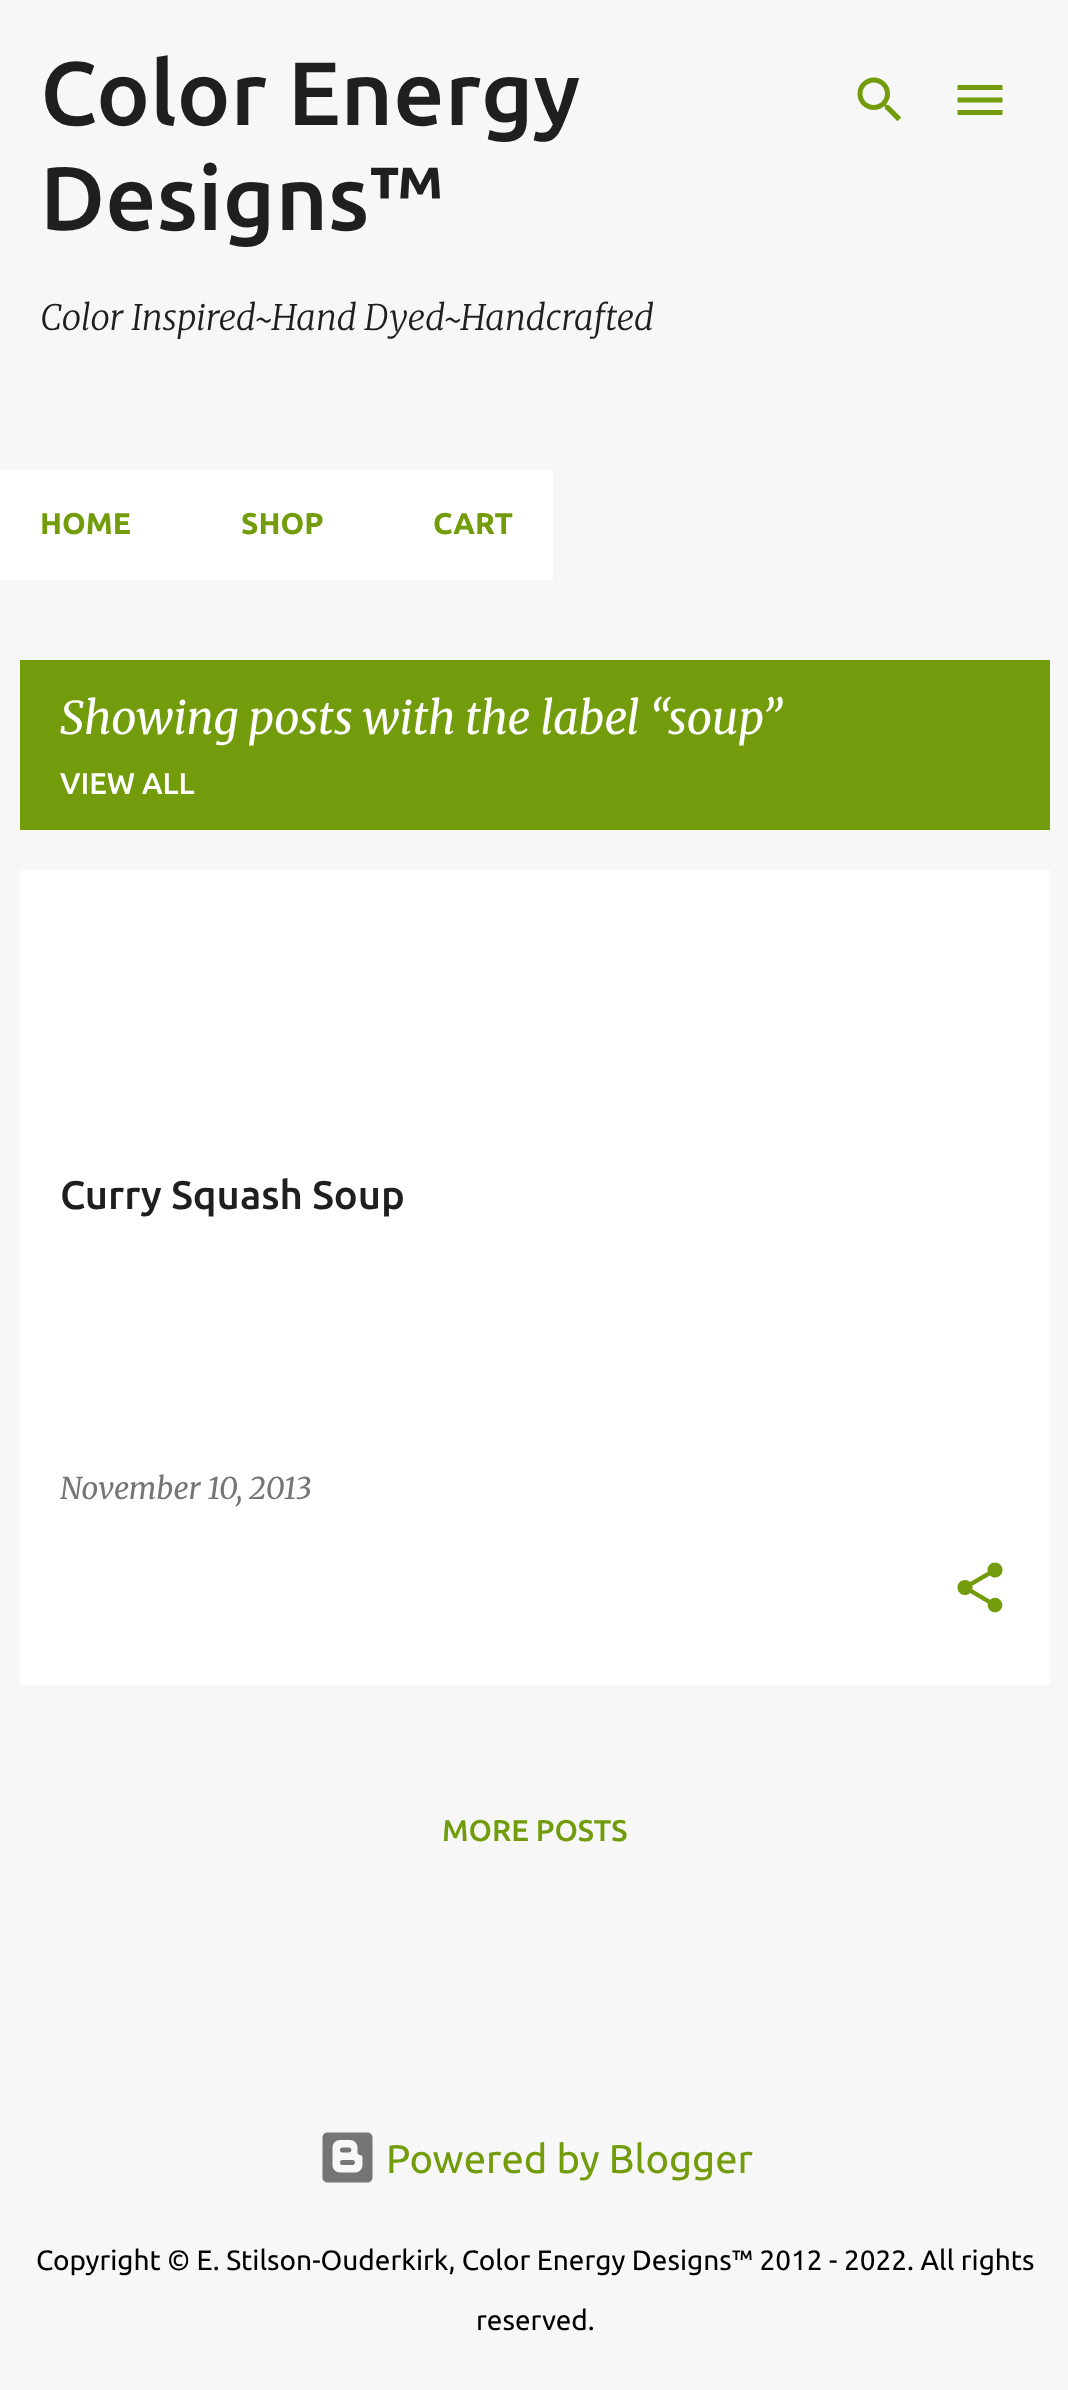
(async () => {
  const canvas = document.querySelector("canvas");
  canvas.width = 1068;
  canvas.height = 2390;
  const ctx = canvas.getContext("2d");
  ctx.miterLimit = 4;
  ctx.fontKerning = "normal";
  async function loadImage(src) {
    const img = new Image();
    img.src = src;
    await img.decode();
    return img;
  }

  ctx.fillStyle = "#f7f7f7";
  ctx.fillRect(0, 0, 1068, 2390);
  ctx.drawImage(await loadImage("img/1.png"), 857, 77, 45, 45);
  ctx.drawImage(await loadImage("img/2.png"), 957, 85, 46, 30);
  for (const [x, y, w, h, color] of [
    [0, 470, 553, 110, "#ffffff"],
    [20, 660, 1030, 170, "#729c0b"],
    [20, 870, 1030, 815, "#ffffff"],
  ]) {
    ctx.fillStyle = color;
    ctx.fillRect(x, y, w, h);
  }
  ctx.drawImage(await loadImage("img/3.png"), 957, 1562, 46, 51);
  ctx.drawImage(await loadImage("img/4.png"), 322, 2132, 51, 51);
  ctx.font = "500 90px Ubuntu";
  ctx.fillStyle = "#1f1f1f";
  ctx.fillText("Color Energy", 40, 125);
  ctx.fillText("Designs™", 40, 230);
  ctx.font = "italic 300 35px Merriweather";
  ctx.fillText("Color Inspired~Hand Dyed~Handcrafted", 40, 330);
  ctx.font = "bold 30px Ubuntu";
  ctx.fillStyle = "#729c0b";
  for (const [text, x, y] of [
    ["HOME", 40, 534],
    ["SHOP", 241, 534],
    ["CART", 433, 534],
  ]) {
    ctx.fillText(text, x, y);
  }
  ctx.font = "italic 45px Merriweather";
  ctx.fillStyle = "#ffffff";
  for (const [text, x, y] of [
    ["Showing posts with the label “", 60, 734],
    ["”", 761, 734],
    ["soup", 668, 734],
  ]) {
    ctx.fillText(text, x, y);
  }
  ctx.font = "500 30px Ubuntu";
  ctx.fillText("VIEW ALL", 60, 794);
  ctx.font = "500 40px Ubuntu";
  ctx.fillStyle = "#1f1f1f";
  ctx.fillText("Curry Squash Soup", 60, 1209);
  ctx.font = "italic 30px Merriweather";
  ctx.fillStyle = "#757575";
  ctx.fillText("November 10, 2013", 60, 1499);
  ctx.font = "500 30px Ubuntu";
  ctx.fillStyle = "#729c0b";
  ctx.fillText("MORE POSTS", 442, 1841);
  ctx.font = "40px Ubuntu";
  ctx.fillText("Powered by Blogger", 386, 2173);
  ctx.font = "28px Ubuntu";
  ctx.fillStyle = "#000000";
  ctx.fillText("Copyright © E. Stilson-Ouderkirk, Color Energy Designs™ 2012 - 2022. All rights", 36, 2270);
  ctx.fillText("reserved.", 476, 2330);
})();
